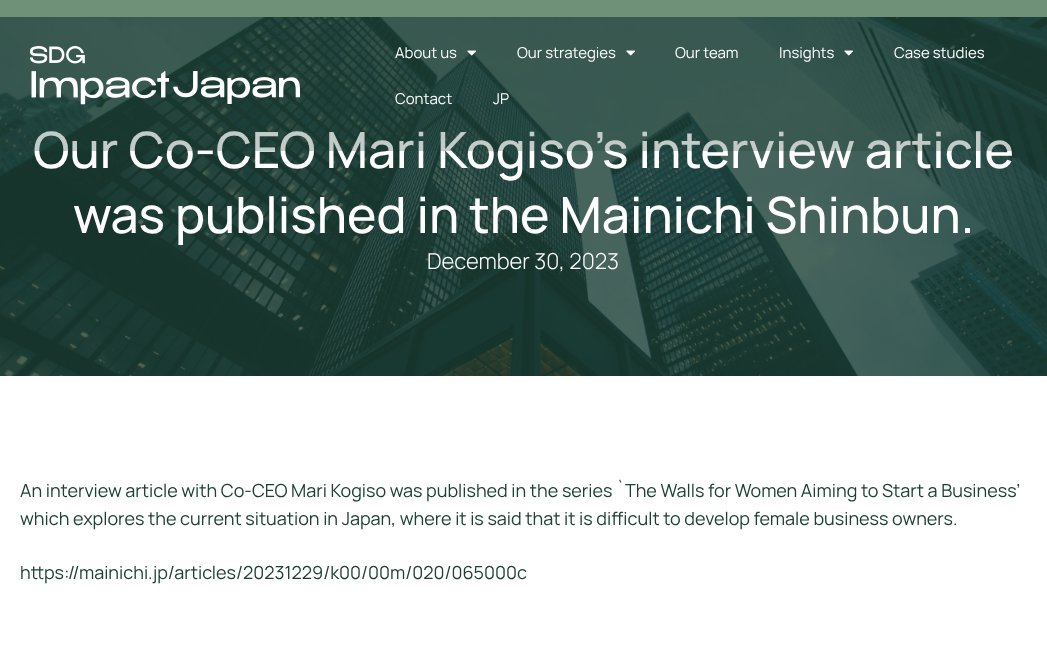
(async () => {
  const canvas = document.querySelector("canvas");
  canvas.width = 1047;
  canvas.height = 663;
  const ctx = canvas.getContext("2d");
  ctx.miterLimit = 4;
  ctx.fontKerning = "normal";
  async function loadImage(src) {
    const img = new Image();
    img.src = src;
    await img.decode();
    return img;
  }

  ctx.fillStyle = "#8eb092";
  ctx.fillRect(0, 0, 1047, 663);
  ctx.drawImage(await loadImage("img/5.png"), 0, 17, 1047, 359);
  ctx.fillStyle = "#ffffff";
  ctx.fillRect(0, 376, 1047, 287);
  ctx.font = "500 50px Manrope";
  ctx.fillText("Our Co-CEO Mari Kogiso’s interview article", 33, 168);
  ctx.fillStyle = "rgba(28, 64, 53, 0.27)";
  ctx.fillRect(0, 0, 1047, 151);
  ctx.font = "15px Manrope";
  ctx.fillStyle = "#ffffff";
  for (const [text, x, y] of [
    ["JP", 493, 104],
    ["Contact", 395, 104],
    ["Case studies", 894, 58],
  ]) {
    ctx.fillText(text, x, y);
  }
  ctx.drawImage(await loadImage("img/4.png"), 844, 50, 9, 6);
  ctx.fillText("Insights", 779, 58);
  ctx.fillText("Our team", 675, 58);
  ctx.drawImage(await loadImage("img/3.png"), 626, 50, 9, 6);
  ctx.fillText("Our strategies", 517, 58);
  ctx.drawImage(await loadImage("img/2.png"), 467, 50, 9, 6);
  ctx.fillText("About us", 395, 58);
  ctx.drawImage(await loadImage("img/1.png"), 30, 46, 270, 59);
  ctx.font = "500 50px Manrope";
  ctx.fillText("was published in the Mainichi Shinbun.", 73, 233);
  ctx.font = "300 22px Manrope";
  ctx.fillText("December 30, 2023", 427, 269);
  ctx.font = "18px Manrope";
  ctx.fillStyle = "#1c4035";
  for (const [text, x, y] of [
    ["An interview article with Co-CEO Mari Kogiso was published in the series `The Walls for Women Aiming to Start a Business’", 20, 497],
    ["which explores the current situation in Japan, where it is said that it is difficult to develop female business owners.", 20, 525],
    ["https://mainichi.jp/articles/20231229/k00/00m/020/065000c", 20, 579],
  ]) {
    ctx.fillText(text, x, y);
  }
})();
